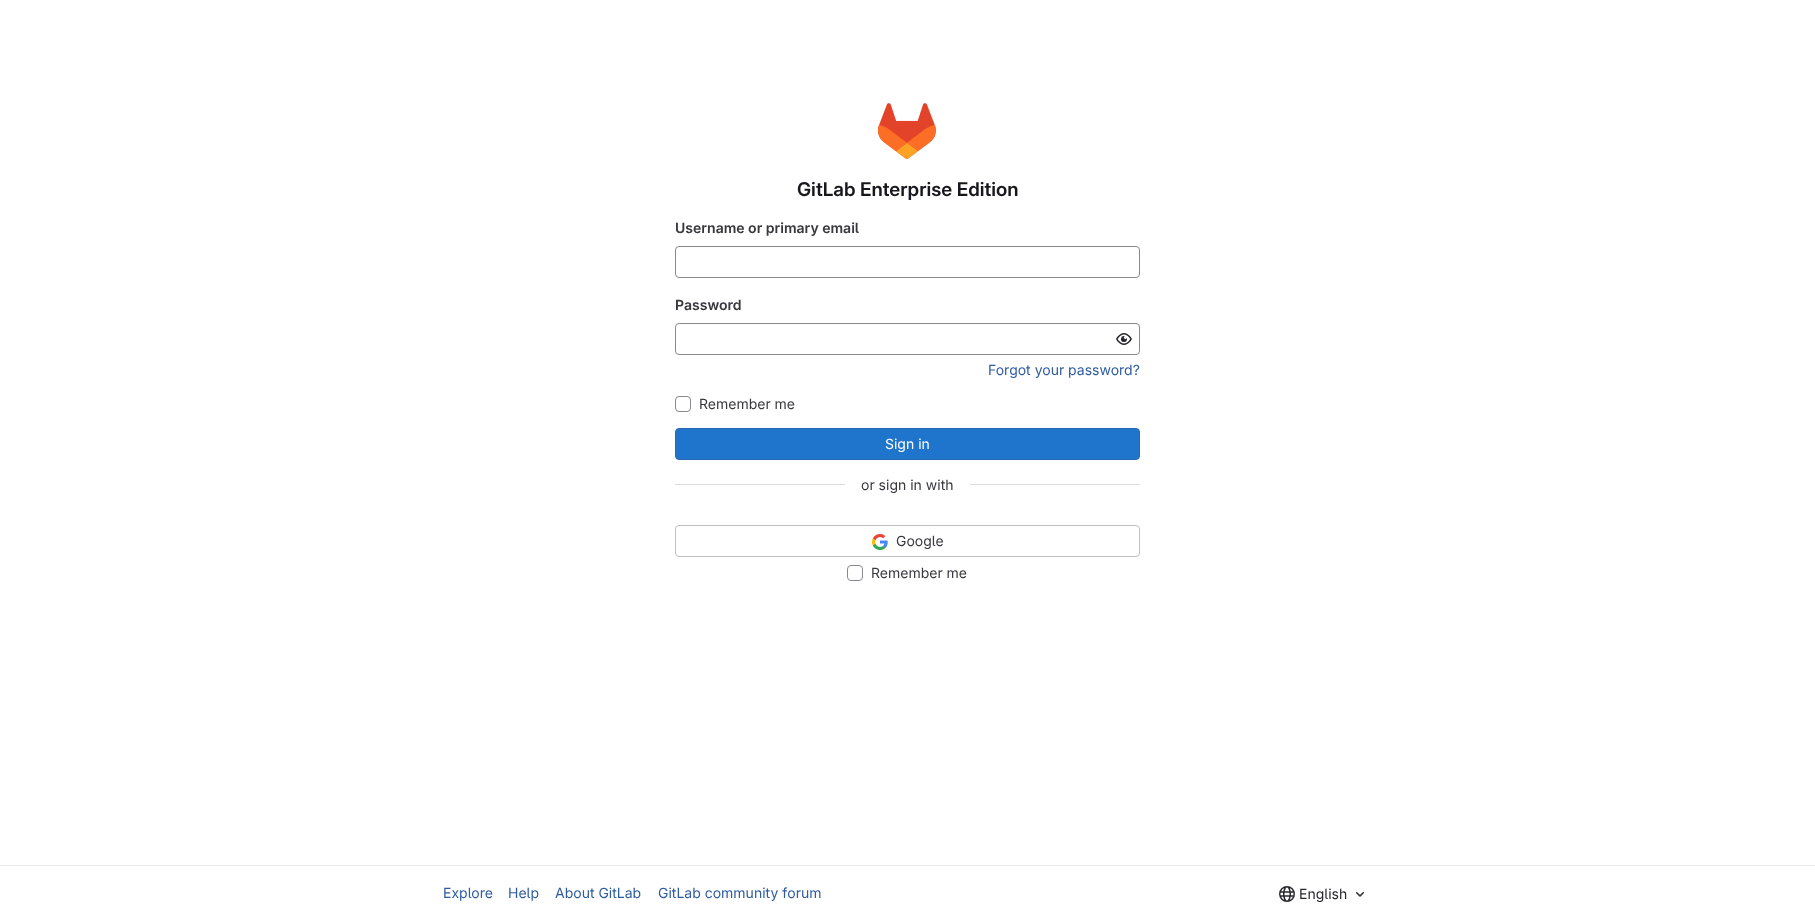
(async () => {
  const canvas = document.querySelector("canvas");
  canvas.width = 1815;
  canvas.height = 922;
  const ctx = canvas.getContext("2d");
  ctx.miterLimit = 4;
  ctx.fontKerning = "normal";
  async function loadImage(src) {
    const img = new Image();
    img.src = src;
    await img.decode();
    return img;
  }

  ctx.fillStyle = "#ffffff";
  ctx.fillRect(0, 0, 1815, 922);
  ctx.drawImage(await loadImage("img/1.png"), 878, 103, 58, 56);
  ctx.beginPath();
  ctx.roundRect(675.5, 246.5, 464, 31, 3.5);
  ctx.strokeStyle = "#89888d";
  ctx.stroke();
  ctx.beginPath();
  ctx.roundRect(675.5, 323.5, 464, 31, 3.5);
  ctx.stroke();
  ctx.drawImage(await loadImage("img/2.png"), 1116, 333, 16, 12);
  ctx.beginPath();
  ctx.roundRect(675.5, 396.5, 15, 15, 3.5);
  ctx.stroke();
  ctx.fillStyle = "#1f75cb";
  ctx.beginPath();
  ctx.roundRect(675.5, 428.5, 464, 31, 3.5);
  ctx.fill();
  ctx.strokeStyle = "#2f68b4";
  ctx.stroke();
  ctx.fillStyle = "#dcdcde";
  ctx.fillRect(675, 484, 170, 1);
  ctx.fillRect(970, 484, 170, 1);
  ctx.beginPath();
  ctx.roundRect(675.5, 525.5, 464, 31, 3.5);
  ctx.strokeStyle = "#bfbfc3";
  ctx.stroke();
  ctx.drawImage(await loadImage("img/3.png"), 872, 534, 16, 16);
  ctx.beginPath();
  ctx.roundRect(847.5, 565.5, 15, 15, 3.5);
  ctx.strokeStyle = "#89888d";
  ctx.stroke();
  ctx.fillStyle = "#ececef";
  ctx.fillRect(0, 865, 1815, 1);
  ctx.drawImage(await loadImage("img/4.png"), 1279, 886, 16, 16);
  ctx.drawImage(await loadImage("img/5.png"), 1356, 892, 8, 5);
  ctx.font = "600 19px 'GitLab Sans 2'";
  ctx.fillStyle = "#18171d";
  ctx.fillText("GitLab Enterprise Edition", 797, 196);
  ctx.font = "600 14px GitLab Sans";
  ctx.fillStyle = "#3a383f";
  ctx.fillText("Username or primary email", 675, 233);
  ctx.fillText("Password", 675, 310);
  ctx.font = "14px GitLab Sans";
  ctx.fillStyle = "#2f5ca0";
  ctx.fillText("Forgot your password?", 988, 375);
  ctx.fillStyle = "#3a383f";
  ctx.fillText("Remember me", 699, 409);
  ctx.fillStyle = "#ffffff";
  ctx.fillText("Sign in", 885, 449);
  ctx.fillStyle = "#3a383f";
  for (const [text, x, y] of [
    ["or sign in with", 861, 490],
    ["Google", 896, 546],
    ["Remember me", 871, 578],
  ]) {
    ctx.fillText(text, x, y);
  }
  ctx.fillStyle = "#2f5ca0";
  for (const [text, x, y] of [
    ["Explore", 443, 898],
    ["Help", 508, 898],
    ["About GitLab", 555, 898],
    ["GitLab community forum", 658, 898],
  ]) {
    ctx.fillText(text, x, y);
  }
  ctx.fillStyle = "#28272d";
  ctx.fillText("English", 1299, 899);
})();
